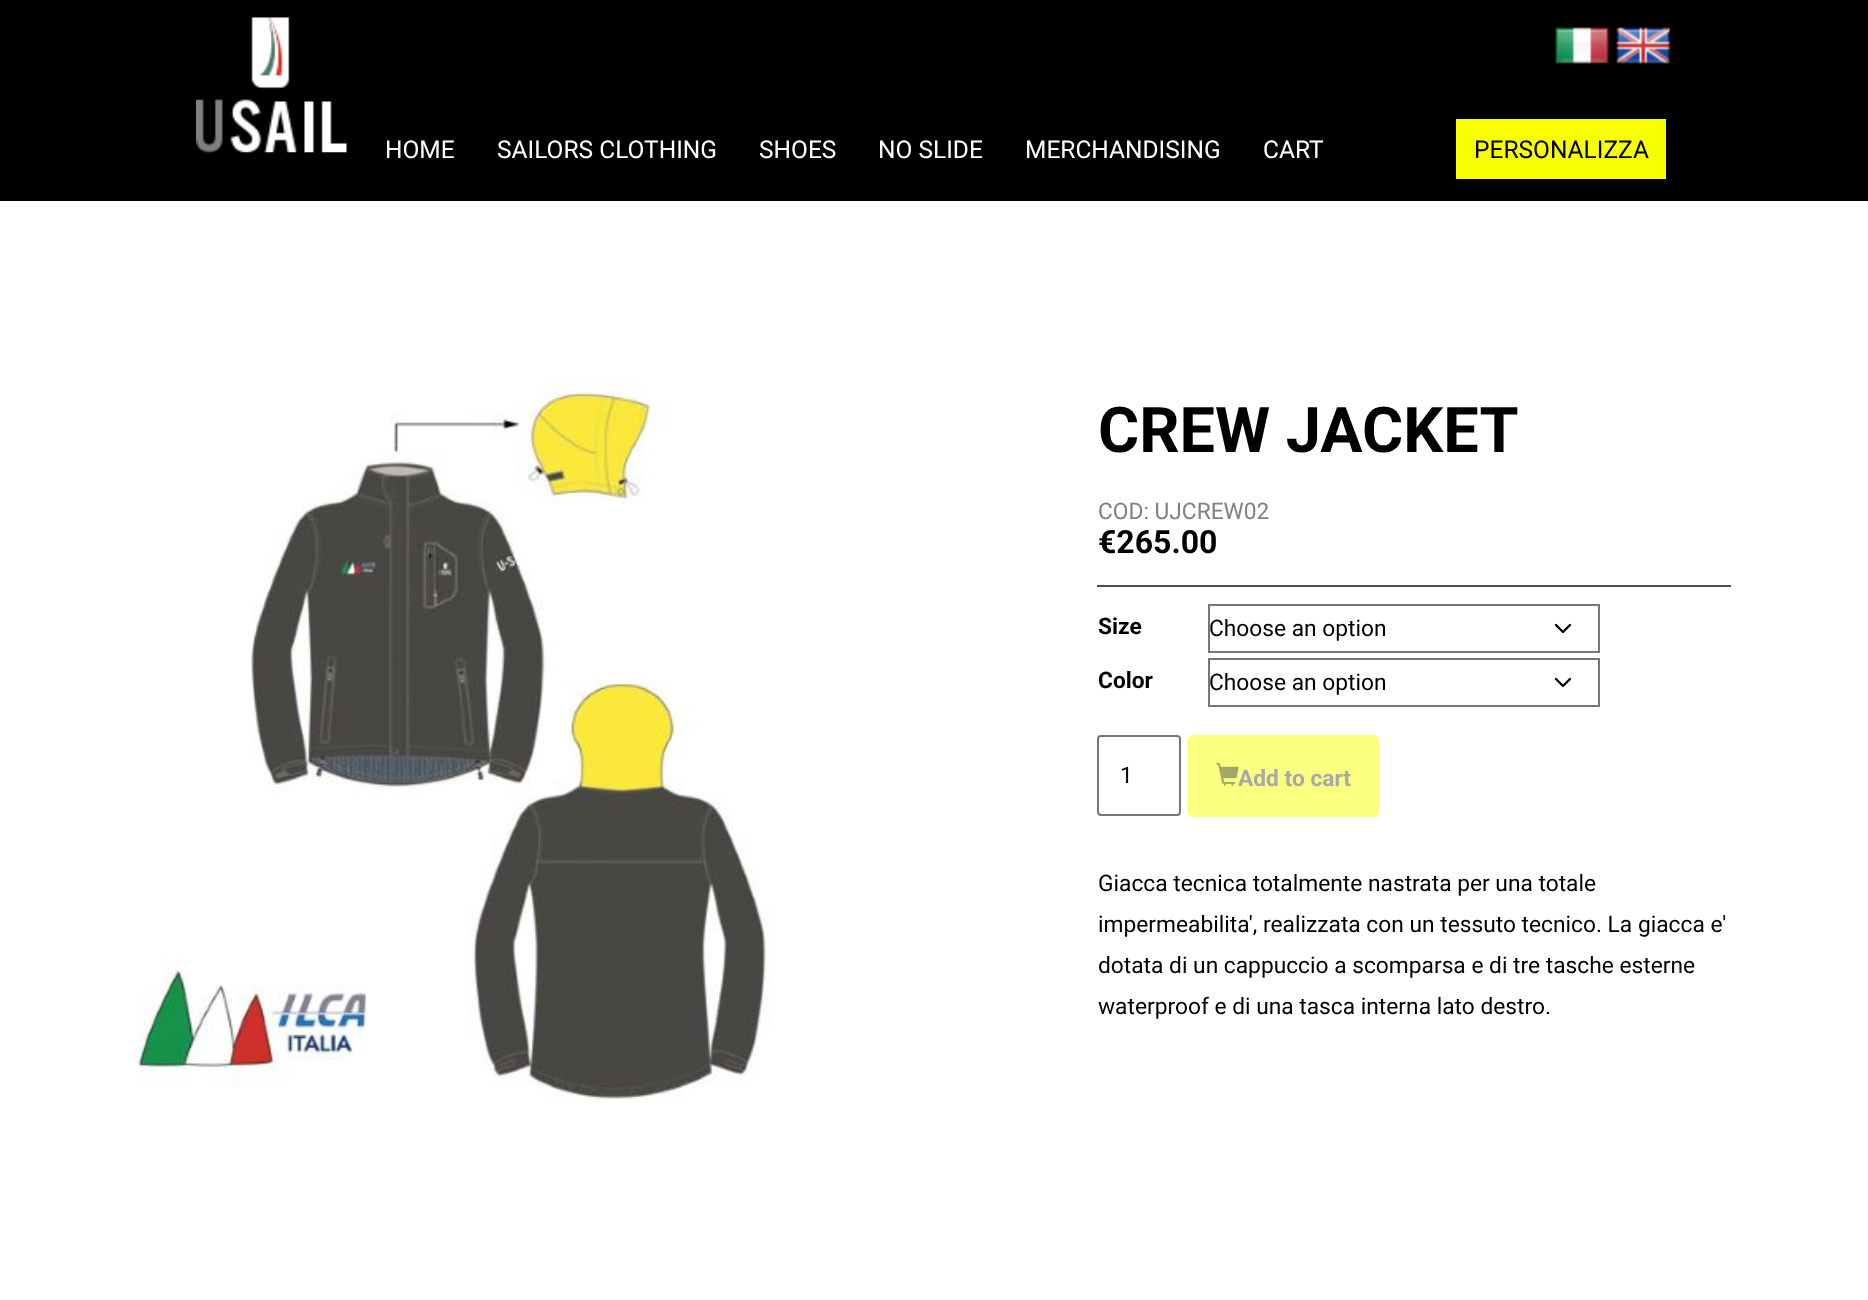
(async () => {
  const canvas = document.querySelector("canvas");
  canvas.width = 1868;
  canvas.height = 1300;
  const ctx = canvas.getContext("2d");
  ctx.miterLimit = 4;
  ctx.fontKerning = "normal";
  async function loadImage(src) {
    const img = new Image();
    img.src = src;
    await img.decode();
    return img;
  }
  let path;

  ctx.fillStyle = "#ffffff";
  ctx.fillRect(0, 0, 1868, 1300);
  ctx.fillStyle = "#000000";
  ctx.fillRect(0, 0, 1868, 201);
  ctx.drawImage(await loadImage("img/1.png"), 196, 17, 151, 136);
  ctx.drawImage(await loadImage("img/2.png"), 1555, 27, 55, 37);
  ctx.drawImage(await loadImage("img/3.png"), 1616, 27, 55, 37);
  ctx.fillStyle = "#f7ff00";
  ctx.fillRect(1456, 119, 210, 60);
  ctx.drawImage(await loadImage("img/4.png"), 136, 376, 634, 723);
  ctx.fillStyle = "#4d4d4d";
  ctx.fillRect(1097, 585, 634, 2);
  path = new Path2D("M1556 625L1563 632L1570 625");
  ctx.strokeStyle = "#000000";
  ctx.lineWidth = 2.3;
  ctx.lineCap = "round";
  ctx.lineJoin = "round";
  ctx.stroke(path);
  ctx.strokeStyle = "#767676";
  ctx.lineWidth = 2;
  ctx.lineJoin = "miter";
  ctx.strokeRect(1209, 605, 390, 47);
  path = new Path2D("M1556 679L1563 686L1570 679");
  ctx.strokeStyle = "#000000";
  ctx.lineWidth = 2.3;
  ctx.lineJoin = "round";
  ctx.stroke(path);
  ctx.strokeStyle = "#767676";
  ctx.lineWidth = 2;
  ctx.lineJoin = "miter";
  ctx.strokeRect(1209, 659, 390, 47);
  ctx.beginPath();
  ctx.roundRect(1098, 736, 82, 79, 3);
  ctx.stroke();
  ctx.fillStyle = "#fbff80";
  ctx.beginPath();
  ctx.roundRect(1189, 736, 189, 80, 4);
  ctx.fill();
  ctx.strokeStyle = "#fbff80";
  ctx.stroke();
  ctx.drawImage(await loadImage("img/5.png"), 1216, 763, 23, 23);
  ctx.font = "24.5px Roboto";
  ctx.fillStyle = "#ffffff";
  for (const [text, x, y] of [
    ["HOME", 385, 158],
    ["SAILORS CLOTHING", 497, 158],
    ["SHOES", 759, 158],
    ["NO SLIDE", 878, 158],
    ["MERCHANDISING", 1025, 158],
    ["CART", 1263, 158],
  ]) {
    ctx.fillText(text, x, y);
  }
  ctx.fillStyle = "#000000";
  ctx.fillText("PERSONALIZZA", 1474, 158);
  ctx.font = "bold 63px Roboto";
  ctx.fillText("CREW JACKET", 1098, 452);
  ctx.font = "22.75px Roboto";
  ctx.fillStyle = "#808080";
  ctx.fillText("COD: UJCREW02", 1098, 519);
  ctx.font = "bold 32px Roboto";
  ctx.fillStyle = "#000000";
  ctx.fillText("€265.00", 1098, 553);
  ctx.font = "bold 22.75px Roboto";
  ctx.fillText("Size", 1098, 634);
  ctx.font = "22.75px Roboto";
  ctx.fillText("Choose an option", 1209, 636);
  ctx.font = "bold 22.75px Roboto";
  ctx.fillText("Color", 1098, 688);
  ctx.font = "22.75px Roboto";
  ctx.fillText("Choose an option", 1209, 690);
  ctx.fillText("1", 1120, 783);
  ctx.font = "bold 22.75px Roboto";
  ctx.fillStyle = "#a8a8a8";
  ctx.fillText("Add to cart", 1238, 786);
  ctx.font = "22.75px Roboto";
  ctx.fillStyle = "#000000";
  for (const [text, x, y] of [
    ["Giacca tecnica totalmente nastrata per una totale", 1098, 891],
    ["impermeabilita', realizzata con un tessuto tecnico. La giacca e'", 1098, 932],
    ["dotata di un cappuccio a scomparsa e di tre tasche esterne", 1098, 973],
    ["waterproof e di una tasca interna lato destro.", 1098, 1014],
  ]) {
    ctx.fillText(text, x, y);
  }
})();
